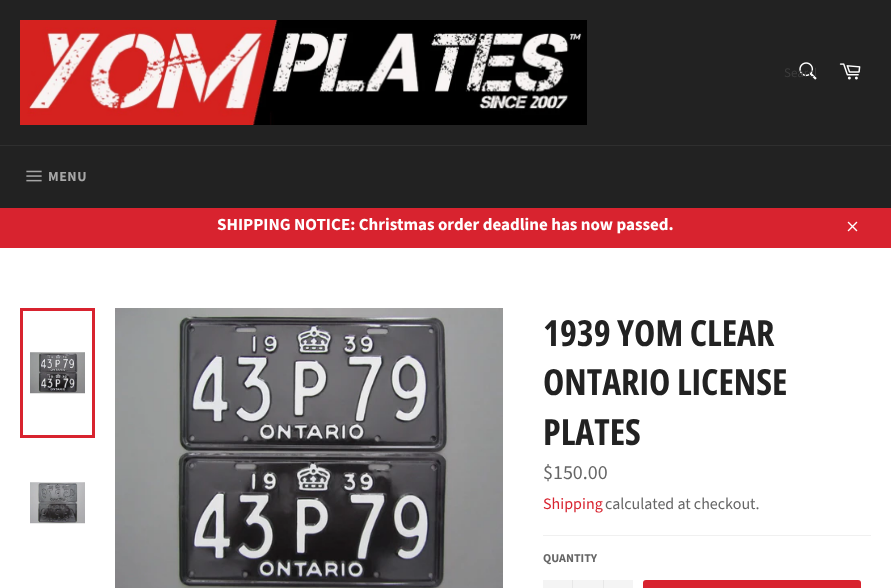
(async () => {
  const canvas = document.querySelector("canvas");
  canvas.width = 891;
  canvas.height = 588;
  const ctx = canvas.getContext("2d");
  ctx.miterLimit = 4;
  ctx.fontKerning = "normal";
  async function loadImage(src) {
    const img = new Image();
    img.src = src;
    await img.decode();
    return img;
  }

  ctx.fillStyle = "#222222";
  ctx.fillRect(0, 0, 891, 588);
  ctx.drawImage(await loadImage("img/1.png"), 20, 20, 567, 105);
  ctx.drawImage(await loadImage("img/2.png"), 799, 62, 18, 18);
  ctx.drawImage(await loadImage("img/3.png"), 839, 63, 22, 17);
  ctx.fillStyle = "#2f2f2f";
  ctx.fillRect(0, 145, 891, 1);
  ctx.drawImage(await loadImage("img/4.png"), 26, 170, 16, 12);
  ctx.fillStyle = "#d8232f";
  ctx.fillRect(0, 208, 891, 40);
  ctx.drawImage(await loadImage("img/5.png"), 847, 221, 11, 11);
  ctx.fillStyle = "#ffffff";
  ctx.fillRect(0, 248, 891, 340);
  ctx.drawImage(await loadImage("img/6.png"), 30, 352, 55, 42);
  ctx.strokeStyle = "#d8232f";
  ctx.lineWidth = 3;
  ctx.strokeRect(21.5, 309.5, 72, 127);
  ctx.drawImage(await loadImage("img/7.png"), 30, 482, 55, 42);
  ctx.drawImage(await loadImage("img/8.png"), 115, 308, 388, 280);
  for (const [x, y, w, h, color] of [
    [543, 535, 328, 1, "#f0f0f0"],
    [543, 580, 90, 8, "#f4f4f4"],
    [572, 580, 1, 8, "#e7e7e7"],
    [603, 580, 1, 8, "#e7e7e7"],
  ]) {
    ctx.fillStyle = color;
    ctx.fillRect(x, y, w, h);
  }
  ctx.fillStyle = "#d8232f";
  ctx.beginPath();
  ctx.roundRect(643, 580, 218, 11, 3);
  ctx.fill();
  ctx.save();
  ctx.beginPath();
  ctx.rect(784, 64, 32, 18);
  ctx.clip();
  ctx.font = "13px Source Sans Pro";
  ctx.fillStyle = "#3c3c3c";
  ctx.fillText("Search", 784, 77);
  ctx.restore();
  ctx.letterSpacing = "0.5px";
  ctx.font = "bold 14px Source Sans Pro";
  ctx.fillStyle = "#a7a7a7";
  ctx.fillText("MENU", 48, 181);
  ctx.letterSpacing = "0px";
  ctx.font = "bold 17px Source Sans Pro";
  ctx.fillStyle = "#ffffff";
  ctx.fillText("SHIPPING NOTICE: Christmas order deadline has now passed.", 217, 230);
  ctx.font = "bold 36px Open Sans Condensed";
  ctx.fillStyle = "#222222";
  for (const [text, x, y] of [
    ["1939 YOM CLEAR", 543, 346],
    ["ONTARIO LICENSE", 543, 395],
    ["PLATES", 543, 445],
  ]) {
    ctx.fillText(text, x, y);
  }
  ctx.font = "20px Source Sans Pro";
  ctx.fillStyle = "#666666";
  ctx.fillText("$150.00", 543, 479);
  ctx.font = "16px Source Sans Pro";
  ctx.fillStyle = "#d8232f";
  ctx.fillText("Shipping", 543, 509);
  ctx.fillStyle = "#666666";
  ctx.fillText("calculated at checkout.", 605, 509);
  ctx.font = "bold 12px Source Sans Pro";
  ctx.fillText("QUANTITY", 543, 562);
})();
